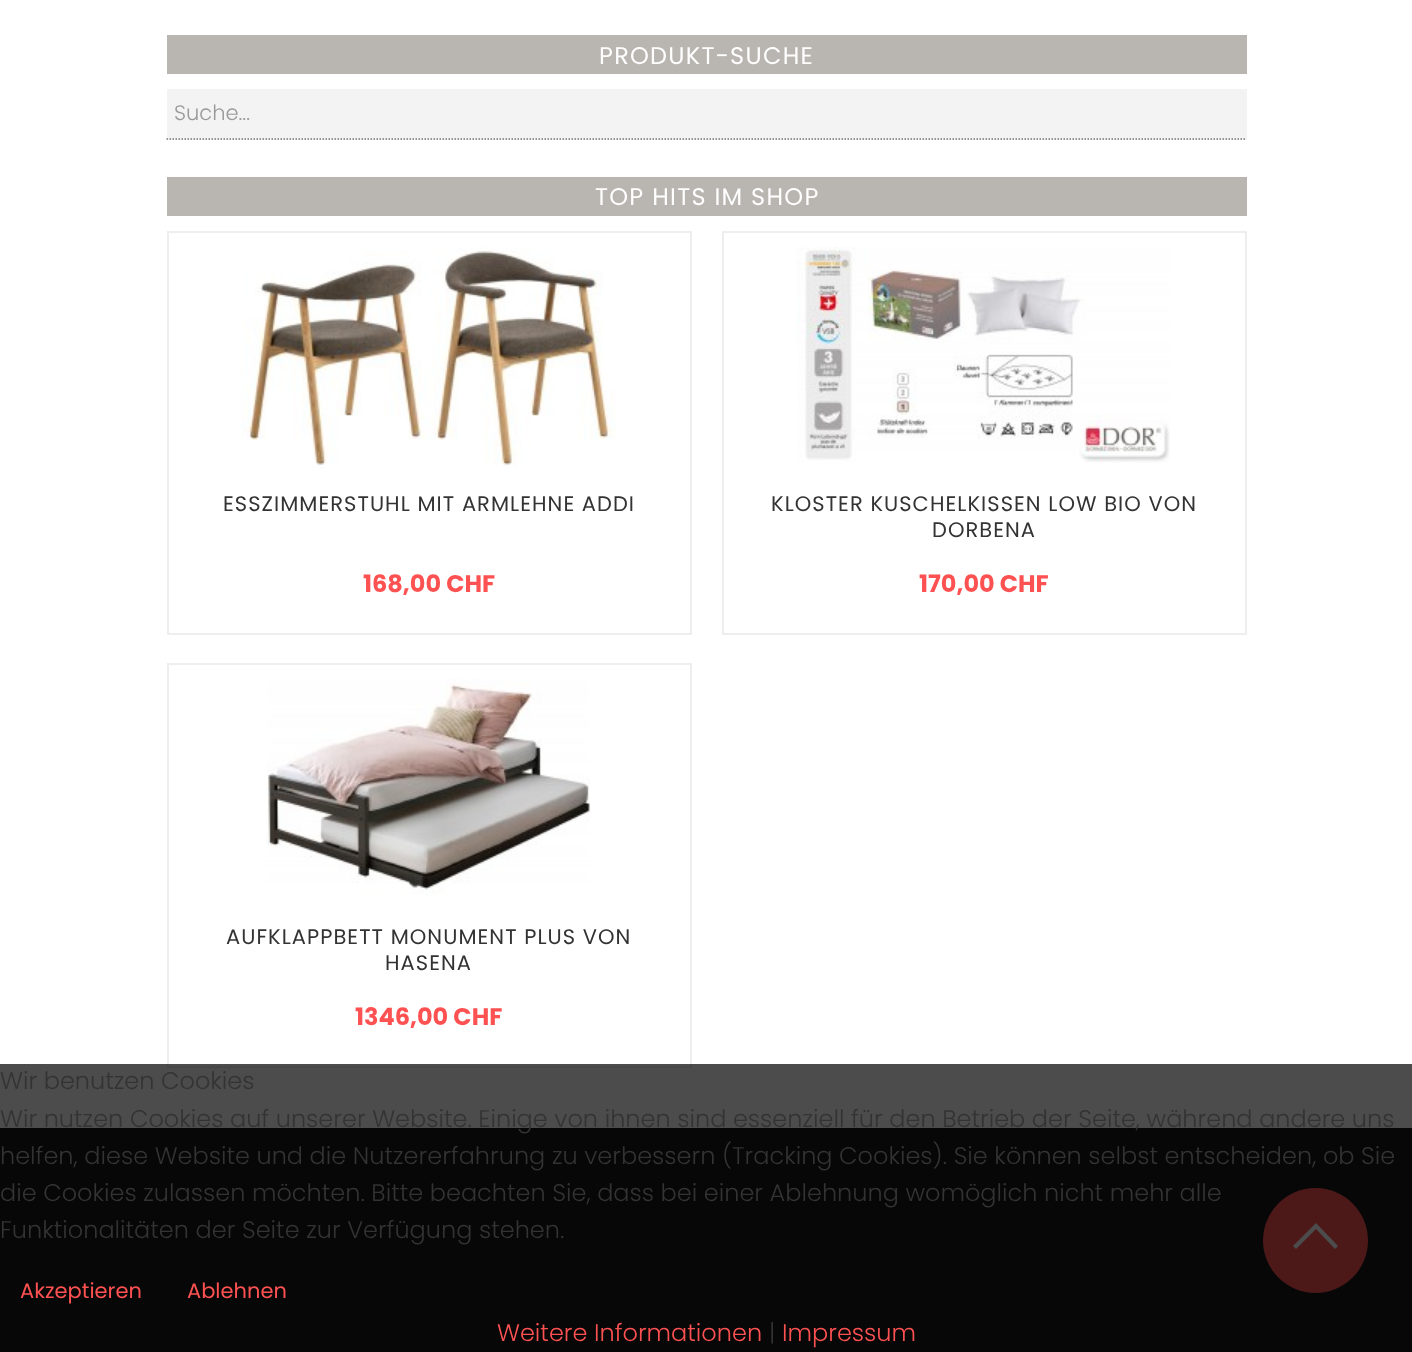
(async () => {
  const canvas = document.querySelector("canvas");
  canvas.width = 1412;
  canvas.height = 1352;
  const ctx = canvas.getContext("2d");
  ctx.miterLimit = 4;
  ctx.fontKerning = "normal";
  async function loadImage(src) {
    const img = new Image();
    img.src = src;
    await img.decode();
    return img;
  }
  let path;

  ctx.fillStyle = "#ffffff";
  ctx.fillRect(0, 0, 1412, 1352);
  ctx.fillStyle = "#b9b5b0";
  ctx.fillRect(167, 35, 1080, 39);
  ctx.fillStyle = "#f3f3f3";
  ctx.fillRect(167, 89, 1080, 51);
  path = new Path2D("M166.5 139H1246.5");
  ctx.strokeStyle = "#777777";
  ctx.lineWidth = 1.5;
  ctx.setLineDash([1.5, 1.5]);
  ctx.stroke(path);
  ctx.fillStyle = "#b9b5b0";
  ctx.fillRect(167, 177, 1080, 39);
  ctx.strokeStyle = "#eeeeee";
  ctx.lineWidth = 2;
  ctx.setLineDash([]);
  ctx.strokeRect(168, 232, 523, 402);
  ctx.drawImage(await loadImage("img/1.png"), 241, 247, 376, 222);
  ctx.strokeRect(723, 232, 523, 402);
  ctx.drawImage(await loadImage("img/2.png"), 796, 247, 374, 216);
  ctx.strokeRect(168, 664, 523, 403);
  ctx.drawImage(await loadImage("img/3.png"), 266, 679, 324, 216);
  ctx.fillStyle = "#1a1a1a";
  ctx.fillRect(0, 1128, 1412, 224);
  ctx.fillStyle = "#fe5252";
  ctx.beginPath();
  ctx.arc(1315.5, 1240.5, 52.5, 0, Math.PI * 2);
  ctx.fill();
  ctx.fillStyle = "#ffffff";
  path = new Path2D("M1293 1246L1296 1249L1316 1229L1335 1249L1338 1246L1316 1223Z");
  ctx.fill(path);
  ctx.fillStyle = "rgba(0, 0, 0, 0.7)";
  ctx.fillRect(0, 1064, 1412, 288);
  ctx.letterSpacing = "1.25px";
  ctx.font = "24px Poppins";
  ctx.fillStyle = "#ffffff";
  ctx.fillText("PRODUKT-SUCHE", 599, 64);
  ctx.letterSpacing = "0px";
  ctx.font = "300 21px Poppins";
  ctx.fillStyle = "#999999";
  ctx.fillText("Suche...", 174, 120);
  ctx.letterSpacing = "1.25px";
  ctx.font = "24px Poppins";
  ctx.fillStyle = "#ffffff";
  ctx.fillText("TOP HITS IM SHOP", 595, 205);
  ctx.letterSpacing = "1.05px";
  ctx.font = "21px Poppins";
  ctx.fillStyle = "#333333";
  ctx.fillText("ESSZIMMERSTUHL MIT ARMLEHNE ADDI", 223, 511);
  ctx.letterSpacing = "0px";
  ctx.font = "bold 24px Poppins";
  ctx.fillStyle = "#fe5252";
  ctx.fillText("168,00 CHF", 363, 592);
  ctx.letterSpacing = "1.05px";
  ctx.font = "21px Poppins";
  ctx.fillStyle = "#333333";
  ctx.fillText("KLOSTER KUSCHELKISSEN LOW BIO VON", 771, 511);
  ctx.fillText("DORBENA", 932, 537);
  ctx.letterSpacing = "0px";
  ctx.font = "bold 24px Poppins";
  ctx.fillStyle = "#fe5252";
  ctx.fillText("170,00 CHF", 919, 592);
  ctx.letterSpacing = "1.05px";
  ctx.font = "21px Poppins";
  ctx.fillStyle = "#333333";
  ctx.fillText("AUFKLAPPBETT MONUMENT PLUS VON", 226, 944);
  ctx.fillText("HASENA", 385, 970);
  ctx.letterSpacing = "0px";
  ctx.font = "bold 24px Poppins";
  ctx.fillStyle = "#fe5252";
  ctx.fillText("1346,00 CHF", 355, 1025);
  ctx.font = "300 24px Poppins";
  ctx.fillStyle = "#333333";
  for (const [text, x, y] of [
    ["Wir benutzen Cookies", 0, 1089],
    ["Wir nutzen Cookies auf unserer Website. Einige von ihnen sind essenziell für den Betrieb der Seite, während andere uns", 0, 1127],
    ["helfen, diese Website und die Nutzererfahrung zu verbessern (Tracking Cookies). Sie können selbst entscheiden, ob Sie", 0, 1164],
    ["die Cookies zulassen möchten. Bitte beachten Sie, dass bei einer Ablehnung womöglich nicht mehr alle", 0, 1201],
    ["Funktionalitäten der Seite zur Verfügung stehen.", 0, 1238],
  ]) {
    ctx.fillText(text, x, y);
  }
  ctx.font = "21px Poppins";
  ctx.fillStyle = "#fe5252";
  ctx.fillText("Akzeptieren", 20, 1298);
  ctx.fillText("Ablehnen", 187, 1298);
  ctx.font = "300 24px Poppins";
  ctx.fillText("Weitere Informationen", 497, 1341);
  ctx.fillStyle = "#333333";
  ctx.fillText("|", 769, 1341);
  ctx.fillStyle = "#fe5252";
  ctx.fillText("Impressum", 782, 1341);
})();
